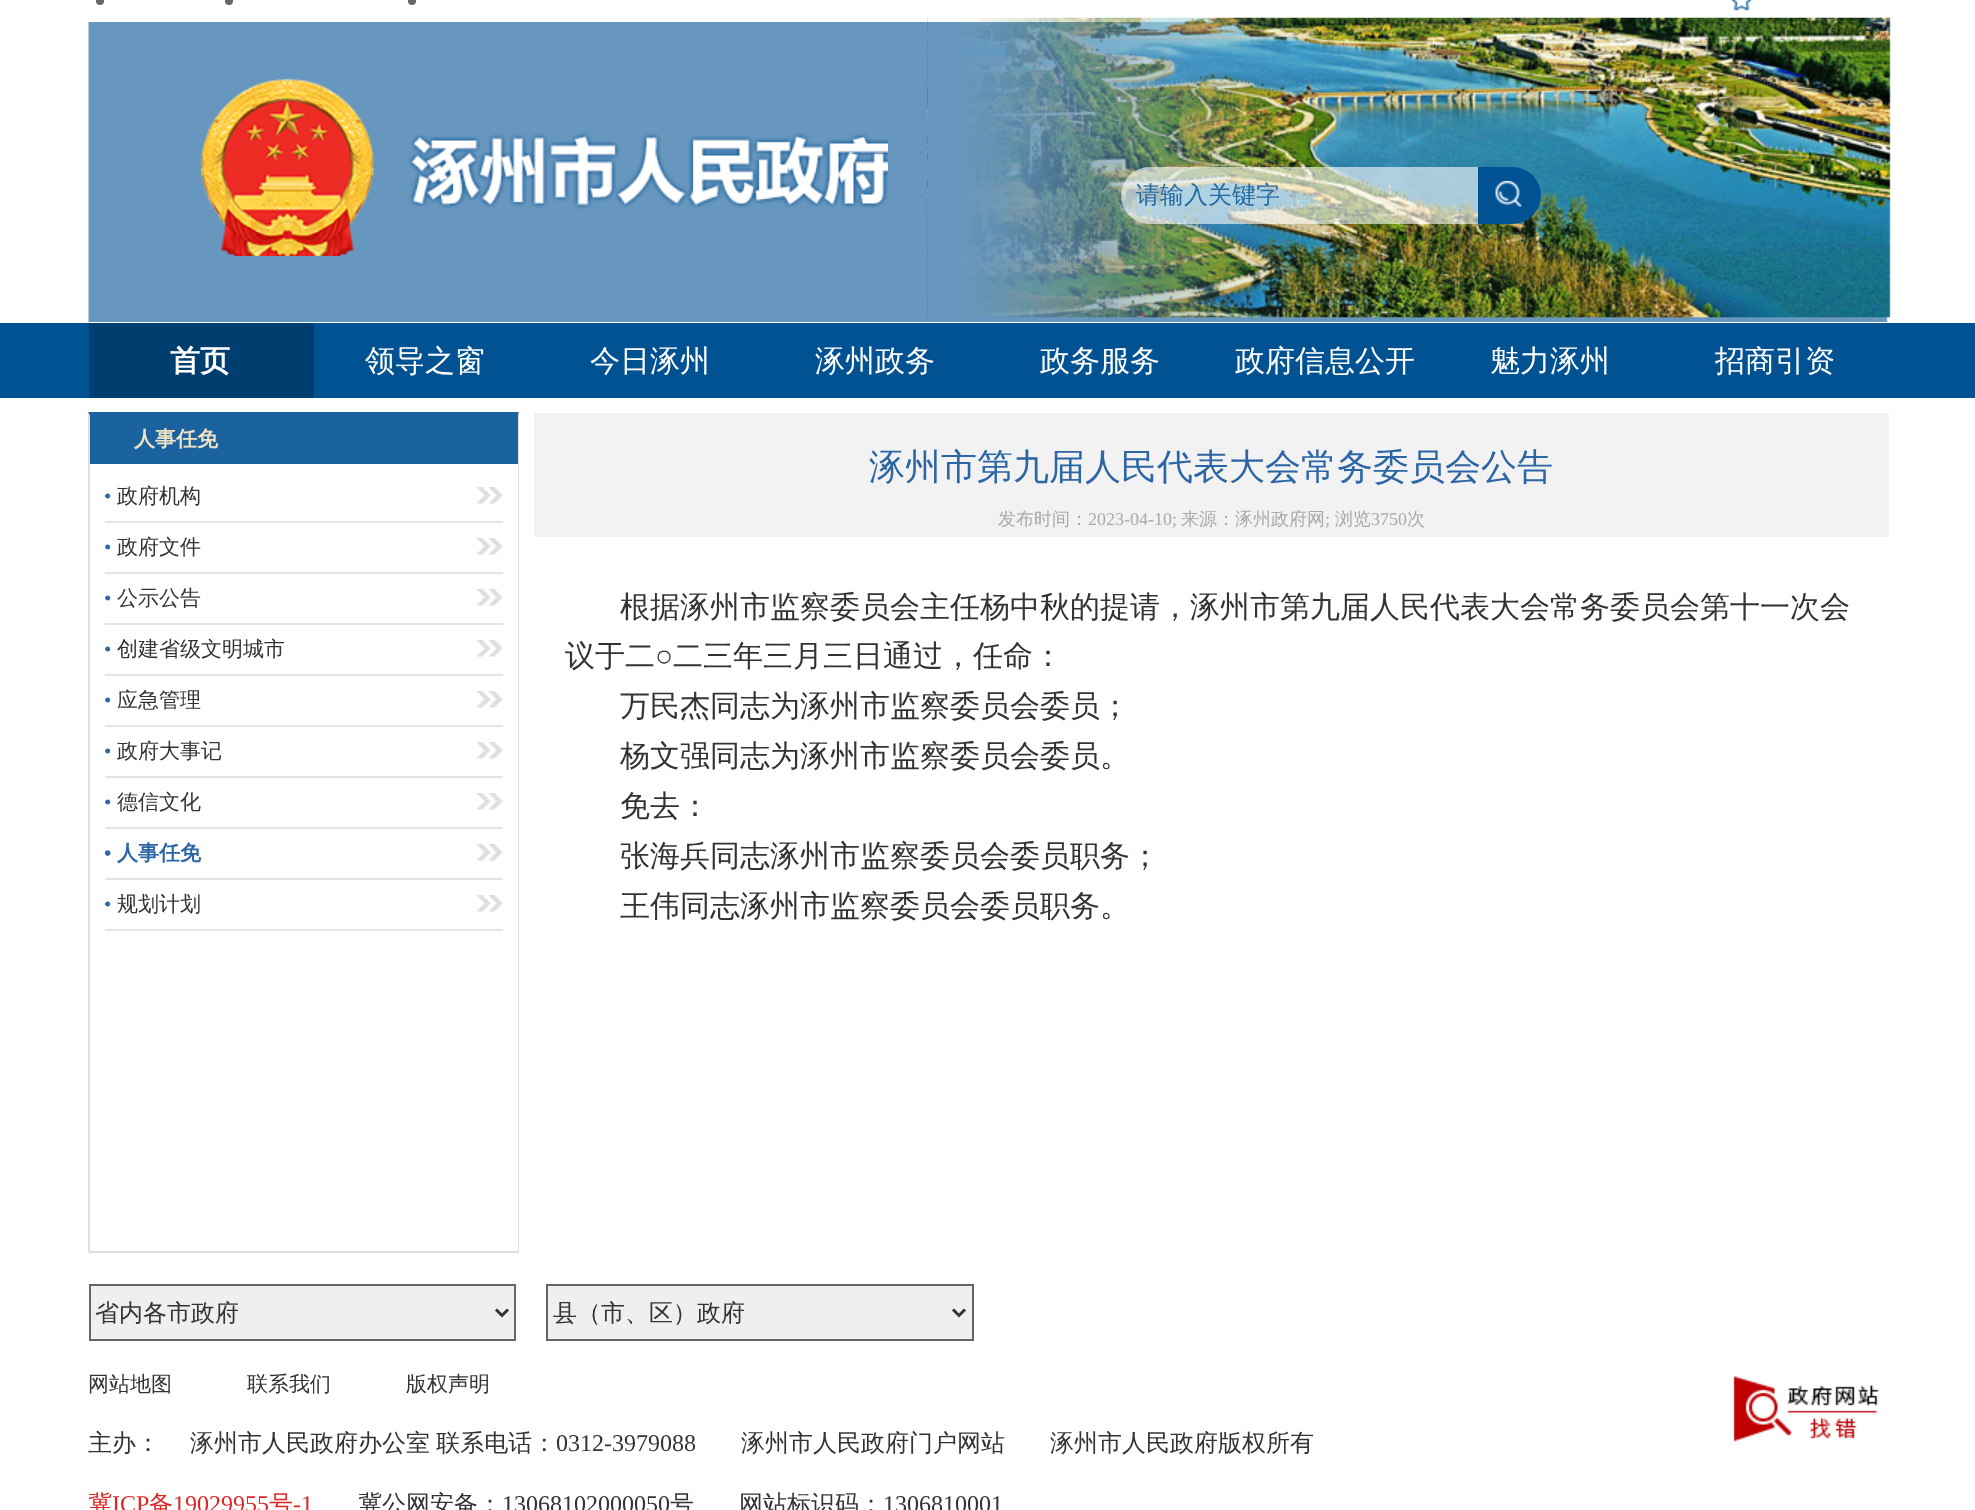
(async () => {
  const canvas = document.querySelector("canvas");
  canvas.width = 1975;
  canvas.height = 1510;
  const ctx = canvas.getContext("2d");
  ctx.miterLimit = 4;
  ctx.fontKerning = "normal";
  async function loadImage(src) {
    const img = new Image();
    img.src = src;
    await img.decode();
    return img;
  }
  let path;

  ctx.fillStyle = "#ffffff";
  ctx.fillRect(0, 0, 1975, 1510);
  ctx.fillStyle = "#666666";
  ctx.beginPath();
  ctx.arc(100, 1, 4, 0, Math.PI * 2);
  ctx.fill();
  ctx.beginPath();
  ctx.arc(229, 1, 4, 0, Math.PI * 2);
  ctx.fill();
  ctx.beginPath();
  ctx.arc(412, 1, 4, 0, Math.PI * 2);
  ctx.fill();
  ctx.drawImage(await loadImage("img/1.png"), 1731, 0, 22, 11);
  ctx.drawImage(await loadImage("img/2.png"), 88, 22, 1800, 300);
  ctx.drawImage(await loadImage("img/3.png"), 200, 78, 688, 178);
  ctx.drawImage(await loadImage("img/4.png"), 927, 17, 964, 301);
  ctx.fillStyle = "rgba(255, 255, 255, 0.6)";
  ctx.beginPath();
  ctx.roundRect(1121, 167, 357, 57, [28.5, 0, 0, 28.5]);
  ctx.fill();
  ctx.fillStyle = "#015293";
  ctx.beginPath();
  ctx.roundRect(1478, 167, 63, 57, [0, 28.5, 28.5, 0]);
  ctx.fill();
  ctx.drawImage(await loadImage("img/5.png"), 1495, 181, 27, 26);
  ctx.fillRect(0, 323, 1975, 75);
  ctx.fillStyle = "#003e70";
  ctx.fillRect(89, 323, 225, 75);
  ctx.fillStyle = "#1a639e";
  path = new Path2D("M88 412H519L518 416H90Z");
  ctx.fill(path);
  ctx.fillStyle = "#dfdfdf";
  path = new Path2D("M519 412V1252L518 1251V416Z");
  ctx.fill(path);
  ctx.fillRect(89, 1251, 430, 2);
  path = new Path2D("M88 1252V412L90 416V1251Z");
  ctx.fill(path);
  ctx.fillStyle = "#1a639e";
  ctx.fillRect(90, 416, 428, 48);
  ctx.drawImage(await loadImage("img/6.png"), 477, 487, 26, 17);
  ctx.fillStyle = "#e5e5e5";
  ctx.fillRect(105, 521, 398, 2);
  ctx.drawImage(await loadImage("img/6.png"), 477, 538, 26, 17);
  ctx.fillRect(105, 572, 398, 2);
  ctx.drawImage(await loadImage("img/6.png"), 477, 589, 26, 17);
  ctx.fillRect(105, 623, 398, 2);
  ctx.drawImage(await loadImage("img/6.png"), 477, 640, 26, 17);
  ctx.fillRect(105, 674, 398, 2);
  ctx.drawImage(await loadImage("img/6.png"), 477, 691, 26, 17);
  ctx.fillRect(105, 725, 398, 2);
  ctx.drawImage(await loadImage("img/6.png"), 477, 742, 26, 17);
  ctx.fillRect(105, 776, 398, 2);
  ctx.drawImage(await loadImage("img/6.png"), 477, 793, 26, 17);
  ctx.fillRect(105, 827, 398, 2);
  ctx.drawImage(await loadImage("img/6.png"), 477, 844, 26, 17);
  ctx.fillRect(105, 878, 398, 2);
  ctx.drawImage(await loadImage("img/6.png"), 477, 895, 26, 17);
  ctx.fillRect(105, 929, 398, 2);
  ctx.fillStyle = "#f2f2f2";
  ctx.fillRect(534, 413, 1355, 124);
  ctx.fillStyle = "#efefef";
  ctx.beginPath();
  ctx.rect(90, 1285, 425, 55);
  ctx.fill();
  ctx.strokeStyle = "#666666";
  ctx.lineWidth = 2;
  ctx.stroke();
  path = new Path2D("M496 1309.5L502 1315.5L508 1309.5");
  ctx.strokeStyle = "#333333";
  ctx.lineWidth = 3;
  ctx.stroke(path);
  ctx.beginPath();
  ctx.rect(547, 1285, 426, 55);
  ctx.fill();
  ctx.strokeStyle = "#666666";
  ctx.lineWidth = 2;
  ctx.stroke();
  path = new Path2D("M953 1309.5L959 1315.5L965 1309.5");
  ctx.strokeStyle = "#333333";
  ctx.lineWidth = 3;
  ctx.stroke(path);
  ctx.drawImage(await loadImage("img/7.png"), 1733, 1376, 146, 66);
  ctx.font = "500 24px WenQuanYi Zen Hei";
  ctx.fillStyle = "#256ba1";
  ctx.fillText("请输入关键字", 1136, 203);
  ctx.font = "bold 30px WenQuanYi Zen Hei";
  ctx.fillStyle = "#ffffff";
  ctx.fillText("首页", 170, 371);
  ctx.font = "500 30px WenQuanYi Zen Hei";
  for (const [text, x, y] of [
    ["领导之窗", 365, 371],
    ["今日涿州", 590, 371],
    ["涿州政务", 815, 371],
    ["政务服务", 1040, 371],
    ["政府信息公开", 1235, 371],
    ["魅力涿州", 1490, 371],
    ["招商引资", 1715, 371],
  ]) {
    ctx.fillText(text, x, y);
  }
  ctx.font = "bold 21px WenQuanYi Zen Hei";
  ctx.fillStyle = "#f1e2c4";
  ctx.fillText("人事任免", 134, 446);
  ctx.font = "21px Liberation Serif";
  ctx.fillStyle = "#2d66a5";
  ctx.fillText("•", 104, 503);
  ctx.font = "500 21px WenQuanYi Zen Hei";
  ctx.fillStyle = "#333333";
  ctx.fillText("政府机构", 117, 503);
  ctx.font = "21px Liberation Serif";
  ctx.fillStyle = "#2d66a5";
  ctx.fillText("•", 104, 554);
  ctx.font = "500 21px WenQuanYi Zen Hei";
  ctx.fillStyle = "#333333";
  ctx.fillText("政府文件", 117, 554);
  ctx.font = "21px Liberation Serif";
  ctx.fillStyle = "#2d66a5";
  ctx.fillText("•", 104, 605);
  ctx.font = "500 21px WenQuanYi Zen Hei";
  ctx.fillStyle = "#333333";
  ctx.fillText("公示公告", 117, 605);
  ctx.font = "21px Liberation Serif";
  ctx.fillStyle = "#2d66a5";
  ctx.fillText("•", 104, 656);
  ctx.font = "500 21px WenQuanYi Zen Hei";
  ctx.fillStyle = "#333333";
  ctx.fillText("创建省级文明城市", 117, 656);
  ctx.font = "21px Liberation Serif";
  ctx.fillStyle = "#2d66a5";
  ctx.fillText("•", 104, 707);
  ctx.font = "500 21px WenQuanYi Zen Hei";
  ctx.fillStyle = "#333333";
  ctx.fillText("应急管理", 117, 707);
  ctx.font = "21px Liberation Serif";
  ctx.fillStyle = "#2d66a5";
  ctx.fillText("•", 104, 758);
  ctx.font = "500 21px WenQuanYi Zen Hei";
  ctx.fillStyle = "#333333";
  ctx.fillText("政府大事记", 117, 758);
  ctx.font = "21px Liberation Serif";
  ctx.fillStyle = "#2d66a5";
  ctx.fillText("•", 104, 809);
  ctx.font = "500 21px WenQuanYi Zen Hei";
  ctx.fillStyle = "#333333";
  ctx.fillText("德信文化", 117, 809);
  ctx.font = "bold 21px Liberation Serif";
  ctx.fillStyle = "#2d66a5";
  ctx.fillText("•", 104, 860);
  ctx.font = "bold 21px WenQuanYi Zen Hei";
  ctx.fillText("人事任免", 117, 860);
  ctx.font = "21px Liberation Serif";
  ctx.fillText("•", 104, 911);
  ctx.font = "500 21px WenQuanYi Zen Hei";
  ctx.fillStyle = "#333333";
  ctx.fillText("规划计划", 117, 911);
  ctx.font = "500 36px WenQuanYi Zen Hei";
  ctx.fillStyle = "#2d66a5";
  ctx.fillText("涿州市第九届人民代表大会常务委员会公告", 869, 479);
  ctx.font = "500 18px WenQuanYi Zen Hei";
  ctx.fillStyle = "#aaaaaa";
  ctx.fillText("发布时间：", 998, 525);
  ctx.font = "18px Liberation Serif";
  ctx.fillText("2023-04-10;", 1088, 525);
  ctx.font = "500 18px WenQuanYi Zen Hei";
  ctx.fillText("来源：涿州政府网", 1181, 525);
  ctx.font = "18px Liberation Serif";
  ctx.fillText(";", 1325, 525);
  ctx.font = "500 18px WenQuanYi Zen Hei";
  ctx.fillText("浏览", 1335, 525);
  ctx.font = "18px Liberation Serif";
  ctx.fillText("3750", 1371, 525);
  ctx.font = "500 18px WenQuanYi Zen Hei";
  ctx.fillText("次", 1407, 525);
  ctx.font = "500 30px WenQuanYi Zen Hei";
  ctx.fillStyle = "#333333";
  ctx.fillText("根据涿州市监察委员会主任杨中秋的提请，涿州市第九届人民代表大会常务委员会第十一次会", 620, 617);
  ctx.fillText("议于二", 565, 666);
  ctx.font = "30px Liberation Sans";
  ctx.fillText("○", 655, 666);
  ctx.font = "500 30px WenQuanYi Zen Hei";
  for (const [text, x, y] of [
    ["二三年三月三日通过，任命：", 673, 666],
    ["万民杰同志为涿州市监察委员会委员；", 620, 716],
    ["杨文强同志为涿州市监察委员会委员。", 620, 766],
    ["免去：", 620, 816],
    ["张海兵同志涿州市监察委员会委员职务；", 620, 866],
    ["王伟同志涿州市监察委员会委员职务。", 620, 916],
  ]) {
    ctx.fillText(text, x, y);
  }
  ctx.font = "500 24px WenQuanYi Zen Hei";
  ctx.fillText("省内各市政府", 95, 1321);
  ctx.fillText("县（市、区）政府", 553, 1321);
  ctx.font = "500 21px WenQuanYi Zen Hei";
  for (const [text, x, y] of [
    ["网站地图", 88, 1391],
    ["联系我们", 247, 1391],
    ["版权声明", 406, 1391],
  ]) {
    ctx.fillText(text, x, y);
  }
  ctx.font = "500 24px WenQuanYi Zen Hei";
  ctx.fillText("主办：", 88, 1451);
  ctx.wordSpacing = "-1px";
  ctx.fillText("涿州市人民政府办公室 联系电话：", 190, 1451);
  ctx.wordSpacing = "0px";
  ctx.font = "24px Liberation Serif";
  ctx.fillText("0312-3979088", 556, 1451);
  ctx.font = "500 24px WenQuanYi Zen Hei";
  ctx.fillText("涿州市人民政府门户网站", 741, 1451);
  ctx.fillText("涿州市人民政府版权所有", 1050, 1451);
  ctx.fillStyle = "#de2625";
  ctx.fillText("冀", 88, 1512);
  ctx.font = "24px Liberation Serif";
  ctx.fillText("ICP", 112, 1512);
  ctx.font = "500 24px WenQuanYi Zen Hei";
  ctx.fillText("备", 149, 1512);
  ctx.font = "24px Liberation Serif";
  ctx.fillText("19029955", 173, 1512);
  ctx.font = "500 24px WenQuanYi Zen Hei";
  ctx.fillText("号", 269, 1512);
  ctx.font = "24px Liberation Serif";
  ctx.fillText("-1", 293, 1512);
  ctx.font = "500 24px WenQuanYi Zen Hei";
  ctx.fillStyle = "#333333";
  ctx.fillText("冀公网安备：", 358, 1512);
  ctx.font = "24px Liberation Serif";
  ctx.fillText("13068102000050", 502, 1512);
  ctx.font = "500 24px WenQuanYi Zen Hei";
  ctx.fillText("号", 670, 1512);
  ctx.fillText("网站标识码：", 739, 1512);
  ctx.font = "24px Liberation Serif";
  ctx.fillText("1306810001", 883, 1512);
})();
